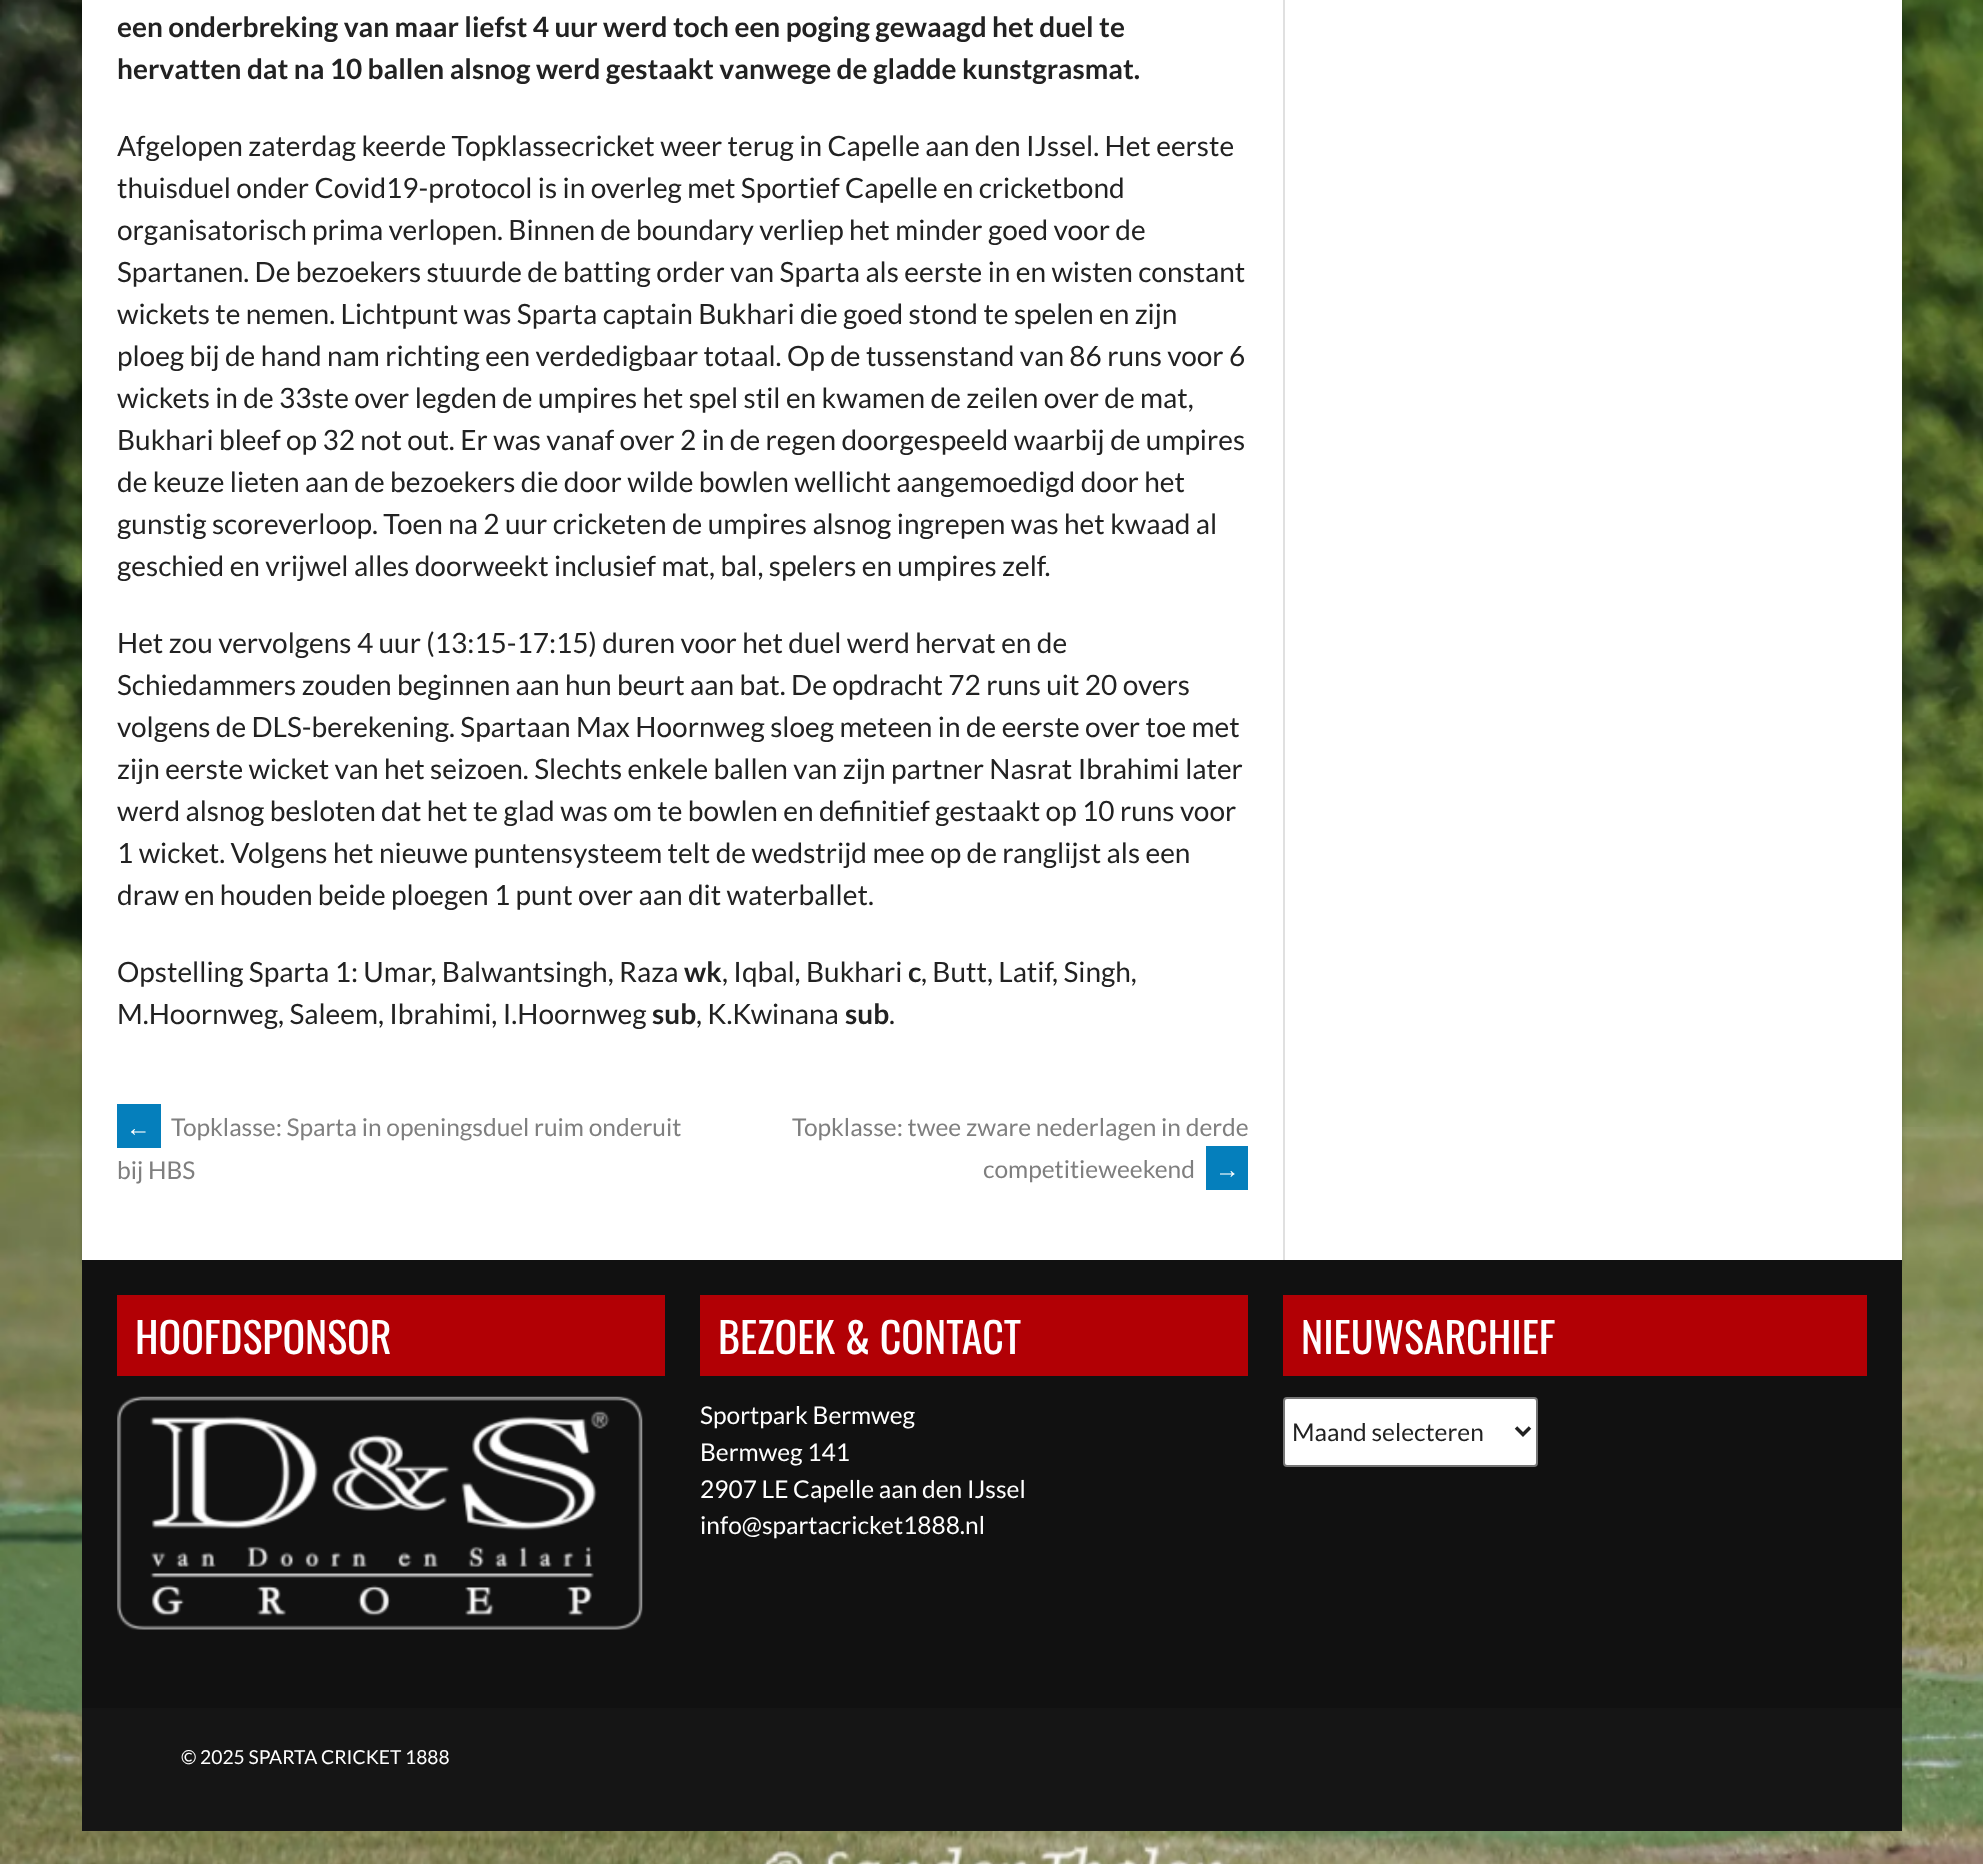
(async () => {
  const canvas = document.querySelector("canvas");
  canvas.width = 1983;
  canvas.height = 1864;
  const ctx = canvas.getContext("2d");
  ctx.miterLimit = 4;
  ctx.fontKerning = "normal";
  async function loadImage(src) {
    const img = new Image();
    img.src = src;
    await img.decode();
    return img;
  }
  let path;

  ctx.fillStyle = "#ffffff";
  ctx.fillRect(0, 0, 1983, 1864);
  ctx.drawImage(await loadImage("img/1.png"), 0, 0, 1983, 1864);
  ctx.fillStyle = "rgba(0, 0, 0, 0.2)";
  ctx.filter = "blur(2.5px)";
  ctx.beginPath();
  ctx.rect(82, -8, 1820, 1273);
  ctx.fill();
  ctx.filter = "none";
  for (const [x, y, w, h, color] of [
    [82, 0, 1820, 1260, "#ffffff"],
    [1283, 0, 2, 1260, "#e0e0e0"],
    [117, 1104, 44, 44, "#057fbc"],
    [1206, 1146, 42, 44, "#057fbc"],
    [82, 1260, 1820, 448, "#111111"],
    [117, 1295, 548, 81, "#b20005"],
  ]) {
    ctx.fillStyle = color;
    ctx.fillRect(x, y, w, h);
  }
  ctx.drawImage(await loadImage("img/2.png"), 117, 1396, 526, 234);
  ctx.fillRect(700, 1295, 548, 81);
  ctx.fillRect(1283, 1295, 584, 81);
  ctx.fillStyle = "#ffffff";
  ctx.beginPath();
  ctx.roundRect(1284, 1398, 253, 68, 3);
  ctx.fill();
  ctx.strokeStyle = "#767676";
  ctx.lineWidth = 2;
  ctx.stroke();
  path = new Path2D("M1516 1427.5L1523 1434.5L1530 1427.5");
  ctx.strokeStyle = "#222222";
  ctx.lineWidth = 3.5;
  ctx.stroke(path);
  ctx.fillStyle = "#151515";
  ctx.fillRect(82, 1708, 1820, 123);
  ctx.font = "bold 28px Lato";
  ctx.fillStyle = "#222222";
  ctx.fillText("een onderbreking van maar liefst 4 uur werd toch een poging gewaagd het duel te", 117, 37);
  ctx.fillText("hervatten dat na 10 ballen alsnog werd gestaakt vanwege de gladde kunstgrasmat.", 117, 79);
  ctx.font = "28px Lato";
  for (const [text, x, y] of [
    ["Afgelopen zaterdag keerde Topklassecricket weer terug in Capelle aan den IJssel. Het eerste", 117, 156],
    ["thuisduel onder Covid19-protocol is in overleg met Sportief Capelle en cricketbond", 117, 198],
    ["organisatorisch prima verlopen. Binnen de boundary verliep het minder goed voor de", 117, 240],
    ["Spartanen. De bezoekers stuurde de batting order van Sparta als eerste in en wisten constant", 117, 282],
    ["wickets te nemen. Lichtpunt was Sparta captain Bukhari die goed stond te spelen en zijn", 117, 324],
    ["ploeg bij de hand nam richting een verdedigbaar totaal. Op de tussenstand van 86 runs voor 6", 117, 366],
    ["wickets in de 33ste over legden de umpires het spel stil en kwamen de zeilen over de mat,", 117, 408],
    ["Bukhari bleef op 32 not out. Er was vanaf over 2 in de regen doorgespeeld waarbij de umpires", 117, 450],
    ["de keuze lieten aan de bezoekers die door wilde bowlen wellicht aangemoedigd door het", 117, 492],
    ["gunstig scoreverloop. Toen na 2 uur cricketen de umpires alsnog ingrepen was het kwaad al", 117, 534],
    ["geschied en vrijwel alles doorweekt inclusief mat, bal, spelers en umpires zelf.", 117, 576],
    ["Het zou vervolgens 4 uur (13:15-17:15) duren voor het duel werd hervat en de", 117, 653],
    ["Schiedammers zouden beginnen aan hun beurt aan bat. De opdracht 72 runs uit 20 overs", 117, 695],
    ["volgens de DLS-berekening. Spartaan Max Hoornweg sloeg meteen in de eerste over toe met", 117, 737],
    ["zijn eerste wicket van het seizoen. Slechts enkele ballen van zijn partner Nasrat Ibrahimi later", 117, 779],
    ["werd alsnog besloten dat het te glad was om te bowlen en definitief gestaakt op 10 runs voor", 117, 821],
    ["1 wicket. Volgens het nieuwe puntensysteem telt de wedstrijd mee op de ranglijst als een", 117, 863],
    ["draw en houden beide ploegen 1 punt over aan dit waterballet.", 117, 905],
    ["Opstelling Sparta 1: Umar, Balwantsingh, Raza", 117, 982],
  ]) {
    ctx.fillText(text, x, y);
  }
  ctx.font = "bold 28px Lato";
  ctx.fillText("wk", 684, 982);
  ctx.font = "28px Lato";
  ctx.fillText(", Iqbal, Bukhari", 722, 982);
  ctx.font = "bold 28px Lato";
  ctx.fillText("c", 908, 982);
  ctx.font = "28px Lato";
  ctx.fillText(", Butt, Latif, Singh,", 921, 982);
  ctx.fillText("M.Hoornweg, Saleem, Ibrahimi, I.Hoornweg", 117, 1024);
  ctx.font = "bold 28px Lato";
  ctx.fillText("sub", 652, 1024);
  ctx.font = "28px Lato";
  ctx.fillText(", K.Kwinana", 696, 1024);
  ctx.font = "bold 28px Lato";
  ctx.fillText("sub", 845, 1024);
  ctx.font = "28px Lato";
  ctx.fillText(".", 889, 1024);
  ctx.font = "24.5px Liberation Sans";
  ctx.fillStyle = "#ffffff";
  ctx.fillText("←", 126, 1136);
  ctx.font = "24.5px Lato";
  ctx.fillStyle = "#7f7f7f";
  for (const [text, x, y] of [
    ["Topklasse: Sparta in openingsduel ruim onderuit", 171, 1136],
    ["bij HBS", 117, 1179],
    ["Topklasse: twee zware nederlagen in derde", 792, 1136],
    ["competitieweekend", 983, 1178],
  ]) {
    ctx.fillText(text, x, y);
  }
  ctx.font = "24.5px Liberation Sans";
  ctx.fillStyle = "#ffffff";
  ctx.fillText("→", 1215, 1178);
  ctx.font = "42px Oswald";
  ctx.fillText("HOOFDSPONSOR", 135, 1354);
  ctx.fillText("BEZOEK & CONTACT", 718, 1354);
  ctx.font = "24.5px Lato";
  for (const [text, x, y] of [
    ["Sportpark Bermweg", 700, 1424],
    ["Bermweg 141", 700, 1461],
    ["2907 LE Capelle aan den IJssel", 700, 1498],
    ["info@spartacricket1888.nl", 700, 1534],
  ]) {
    ctx.fillText(text, x, y);
  }
  ctx.font = "42px Oswald";
  ctx.fillText("NIEUWSARCHIEF", 1301, 1354);
  ctx.font = "24.5px Lato";
  ctx.fillStyle = "#222222";
  ctx.fillText("Maand selecteren", 1292, 1441);
  ctx.font = "19.25px Lato";
  ctx.fillStyle = "#ffffff";
  ctx.fillText("© 2025 SPARTA CRICKET 1888", 181, 1764);
})();
